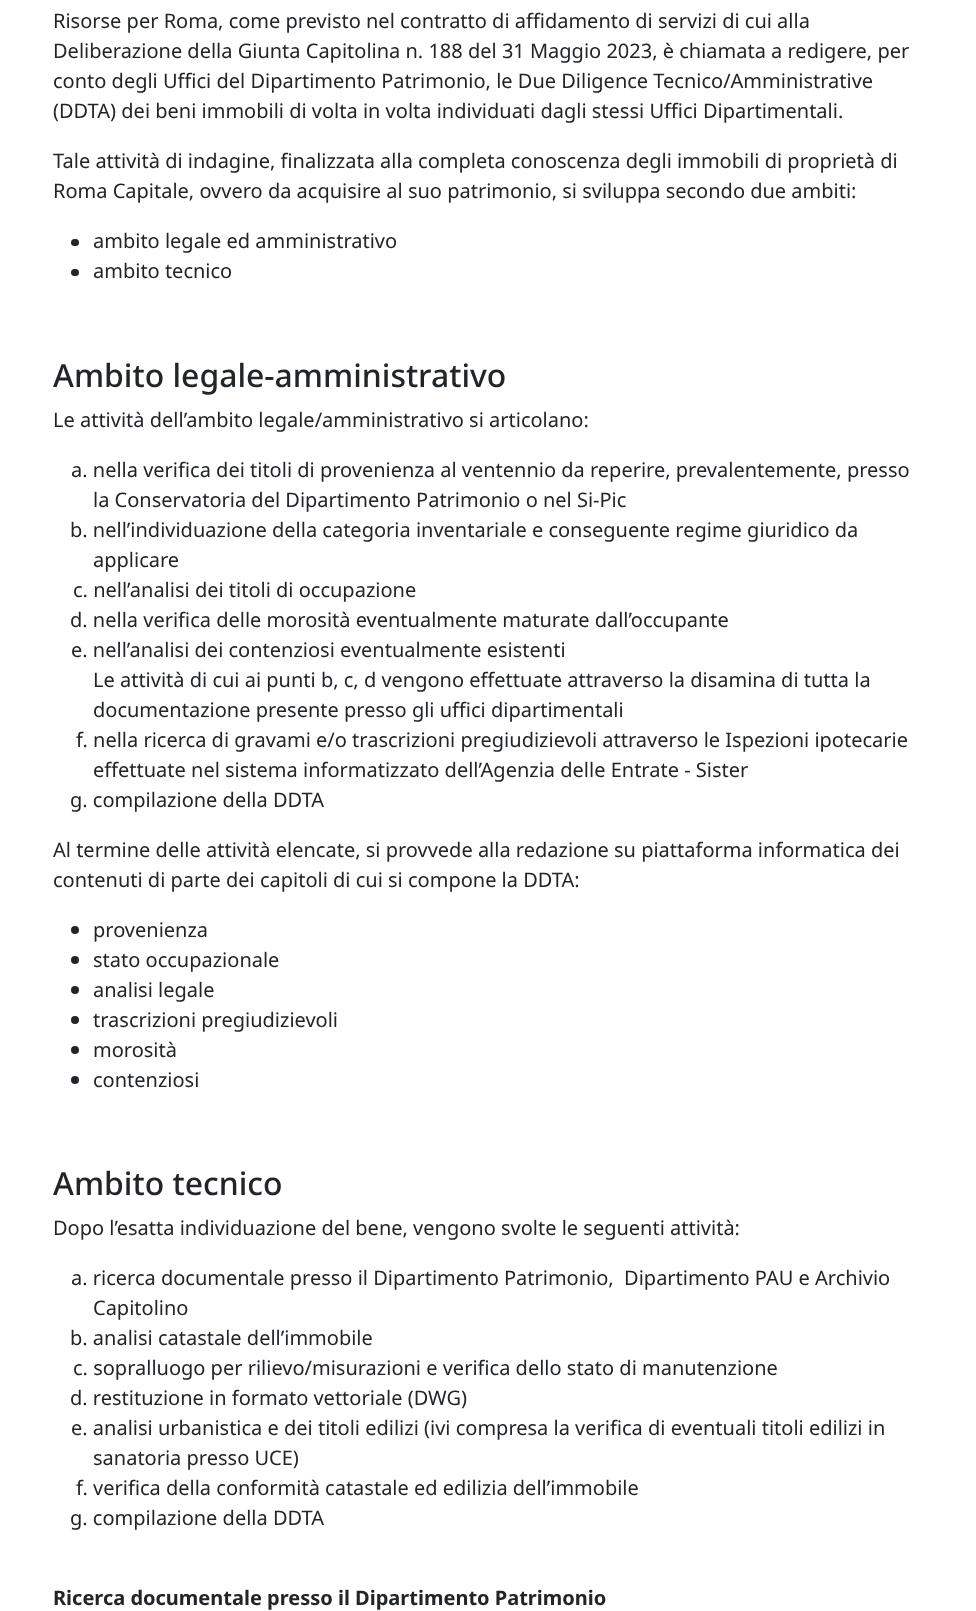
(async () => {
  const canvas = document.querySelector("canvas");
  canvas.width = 976;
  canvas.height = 1611;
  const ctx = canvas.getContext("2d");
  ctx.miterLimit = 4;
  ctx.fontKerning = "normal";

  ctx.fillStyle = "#ffffff";
  ctx.fillRect(0, 0, 976, 1611);
  ctx.fillStyle = "#212529";
  ctx.beginPath();
  ctx.roundRect(71, 239, 8, 7, 3.5);
  ctx.fill();
  ctx.beginPath();
  ctx.roundRect(71, 269, 8, 7, 3.5);
  ctx.fill();
  ctx.beginPath();
  ctx.arc(75, 930, 4, 0, Math.PI * 2);
  ctx.fill();
  ctx.beginPath();
  ctx.arc(75, 960, 4, 0, Math.PI * 2);
  ctx.fill();
  ctx.beginPath();
  ctx.arc(75, 990, 4, 0, Math.PI * 2);
  ctx.fill();
  ctx.beginPath();
  ctx.arc(75, 1020, 4, 0, Math.PI * 2);
  ctx.fill();
  ctx.beginPath();
  ctx.arc(75, 1050, 4, 0, Math.PI * 2);
  ctx.fill();
  ctx.beginPath();
  ctx.arc(75, 1080, 4, 0, Math.PI * 2);
  ctx.fill();
  ctx.font = "20px Noto Sans";
  for (const [text, x, y] of [
    ["Risorse per Roma, come previsto nel contratto di affidamento di servizi di cui alla", 53, 28],
    ["Deliberazione della Giunta Capitolina n. 188 del 31 Maggio 2023, è chiamata a redigere, per", 53, 58],
    ["conto degli Uffici del Dipartimento Patrimonio, le Due Diligence Tecnico/Amministrative", 53, 88],
    ["(DDTA) dei beni immobili di volta in volta individuati dagli stessi Uffici Dipartimentali.", 53, 118],
    ["Tale attività di indagine, finalizzata alla completa conoscenza degli immobili di proprietà di", 53, 168],
    ["Roma Capitale, ovvero da acquisire al suo patrimonio, si sviluppa secondo due ambiti:", 53, 198],
    ["ambito legale ed amministrativo", 93, 248],
    ["ambito tecnico", 93, 278],
  ]) {
    ctx.fillText(text, x, y);
  }
  ctx.font = "500 31.9px Noto Sans";
  ctx.fillText("Ambito legale-amministrativo", 53, 387);
  ctx.font = "20px Noto Sans";
  for (const [text, x, y] of [
    ["Le attività dell’ambito legale/amministrativo si articolano:", 53, 427],
    ["a. nella verifica dei titoli di provenienza al ventennio da reperire, prevalentemente, presso", 71, 477],
    ["la Conservatoria del Dipartimento Patrimonio o nel Si-Pic", 93, 507],
    ["b. nell’individuazione della categoria inventariale e conseguente regime giuridico da", 70, 537],
    ["applicare", 93, 567],
    ["c. nell’analisi dei titoli di occupazione", 73, 597],
    ["d. nella verifica delle morosità eventualmente maturate dall’occupante", 70, 627],
    ["e. nell’analisi dei contenziosi eventualmente esistenti", 71, 657],
    ["Le attività di cui ai punti b, c, d vengono effettuate attraverso la disamina di tutta la", 93, 687],
    ["documentazione presente presso gli uffici dipartimentali", 93, 717],
    ["f. nella ricerca di gravami e/o trascrizioni pregiudizievoli attraverso le Ispezioni ipotecarie", 76, 747],
    ["effettuate nel sistema informatizzato dell’Agenzia delle Entrate - Sister", 93, 777],
    ["g. compilazione della DDTA", 70, 807],
    ["Al termine delle attività elencate, si provvede alla redazione su piattaforma informatica dei", 53, 857],
    ["contenuti di parte dei capitoli di cui si compone la DDTA:", 53, 887],
    ["provenienza", 93, 937],
    ["stato occupazionale", 93, 967],
    ["analisi legale", 93, 997],
    ["trascrizioni pregiudizievoli", 93, 1027],
    ["morosità", 93, 1057],
    ["contenziosi", 93, 1087],
  ]) {
    ctx.fillText(text, x, y);
  }
  ctx.font = "500 31.9px Noto Sans";
  ctx.fillText("Ambito tecnico", 53, 1195);
  ctx.font = "20px Noto Sans";
  for (const [text, x, y] of [
    ["Dopo l’esatta individuazione del bene, vengono svolte le seguenti attività:", 53, 1235],
    ["a. ricerca documentale presso il Dipartimento Patrimonio,  Dipartimento PAU e Archivio", 71, 1285],
    ["Capitolino", 93, 1315],
    ["b. analisi catastale dell’immobile", 70, 1345],
    ["c. sopralluogo per rilievo/misurazioni e verifica dello stato di manutenzione", 73, 1375],
    ["d. restituzione in formato vettoriale (DWG)", 70, 1405],
    ["e. analisi urbanistica e dei titoli edilizi (ivi compresa la verifica di eventuali titoli edilizi in", 71, 1435],
    ["sanatoria presso UCE)", 93, 1465],
    ["f. verifica della conformità catastale ed edilizia dell’immobile", 76, 1495],
    ["g. compilazione della DDTA", 70, 1525],
  ]) {
    ctx.fillText(text, x, y);
  }
  ctx.font = "bold 20px Noto Sans";
  ctx.fillText("Ricerca documentale presso il Dipartimento Patrimonio", 53, 1605);
})();
